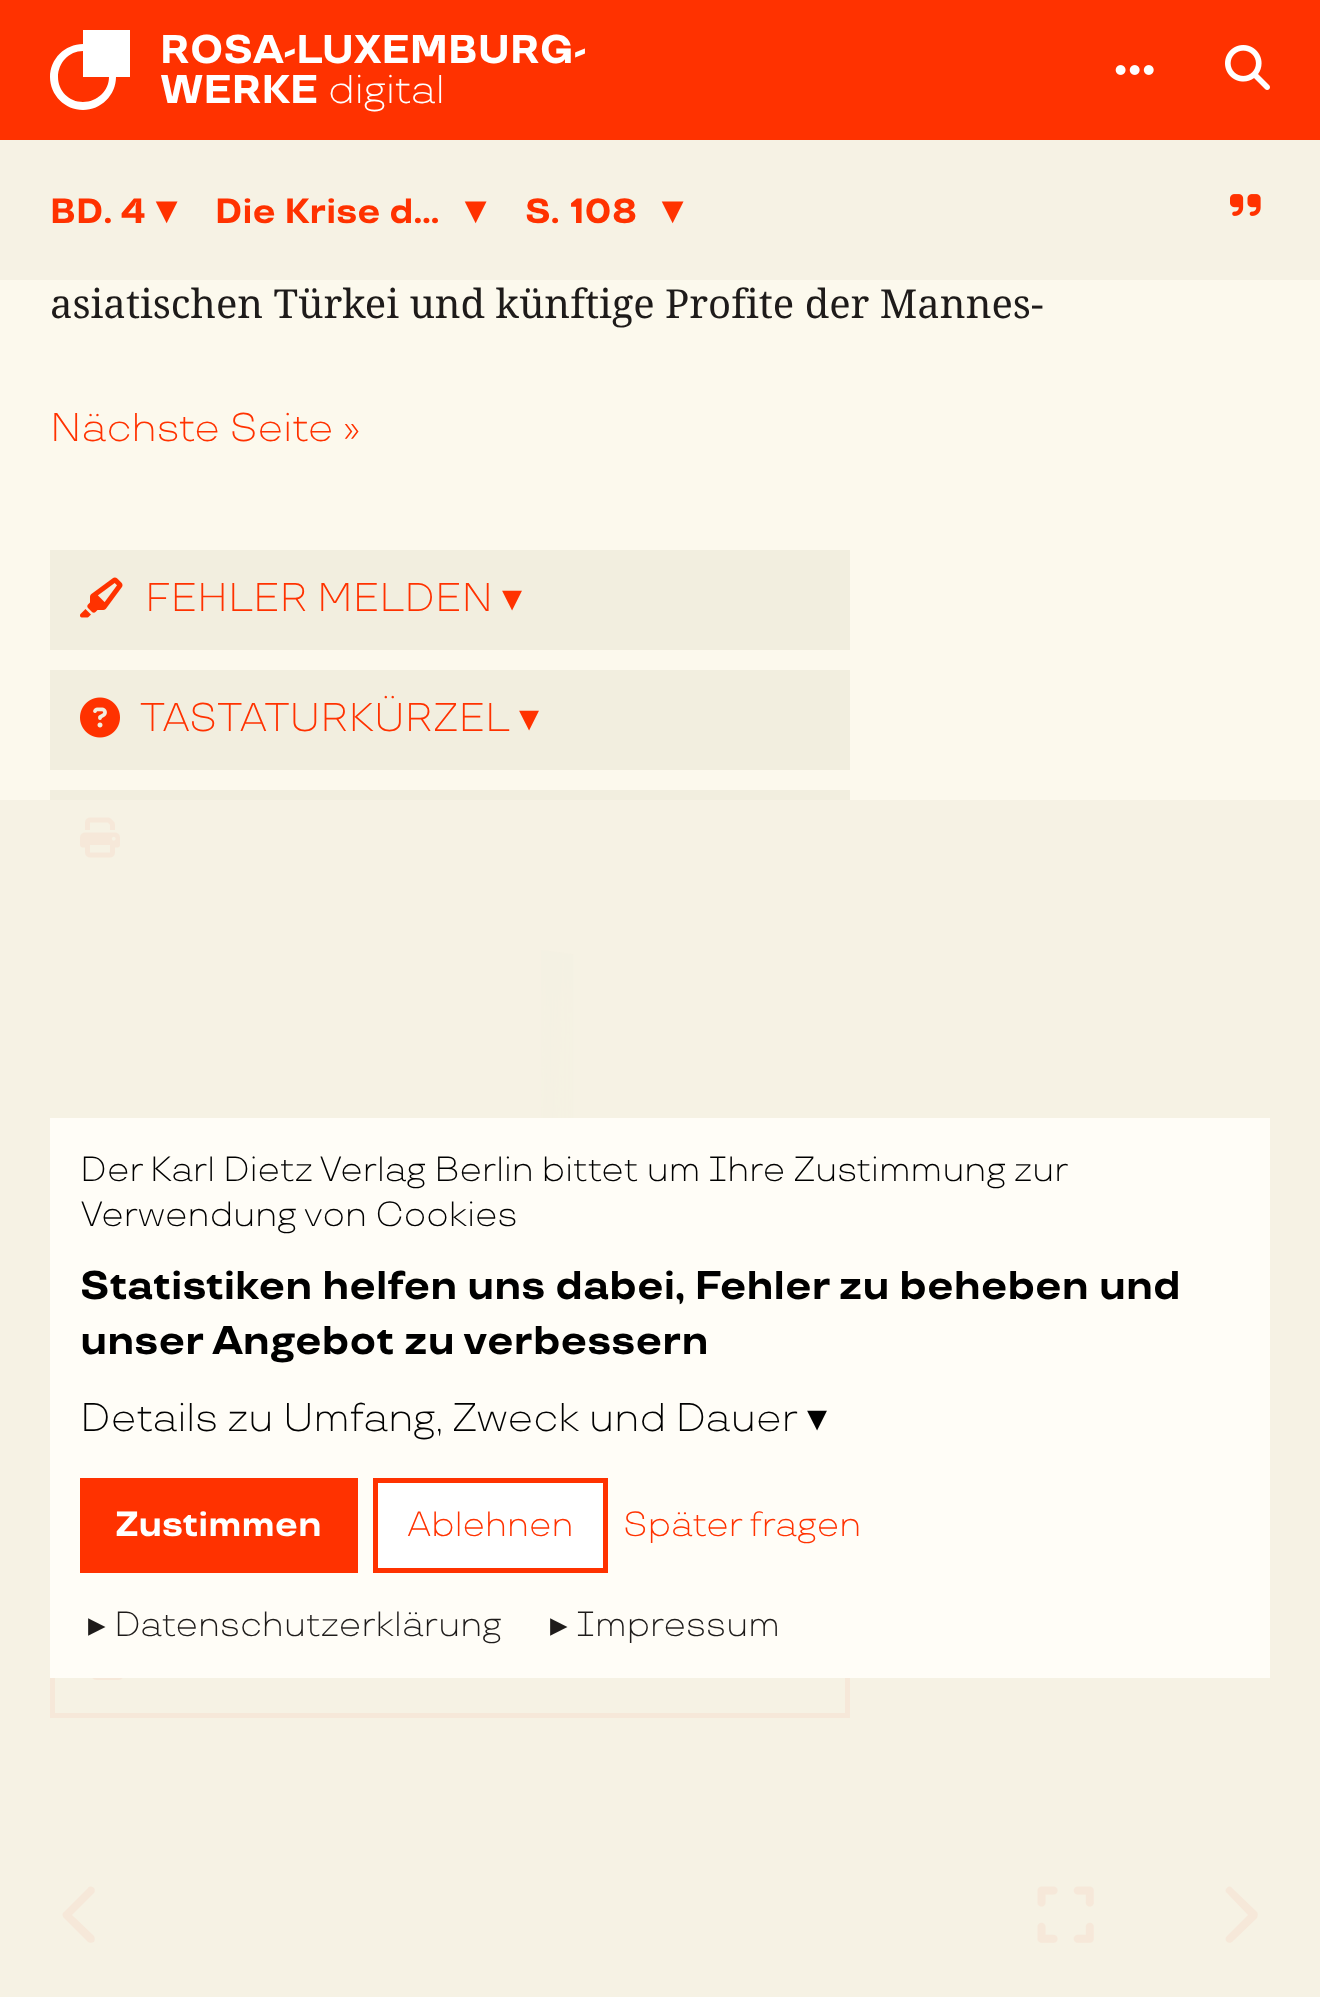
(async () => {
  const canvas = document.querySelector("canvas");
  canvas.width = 1320;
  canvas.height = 1997;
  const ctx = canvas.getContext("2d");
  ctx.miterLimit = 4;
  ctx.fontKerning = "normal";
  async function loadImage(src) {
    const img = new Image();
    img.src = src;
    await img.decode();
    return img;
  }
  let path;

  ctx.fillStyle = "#fcf9ed";
  ctx.fillRect(0, 0, 1320, 1997);
  ctx.fillStyle = "#f6f2e4";
  ctx.fillRect(0, 800, 1320, 1197);
  ctx.fillStyle = "#ff3200";
  ctx.fillRect(0, 0, 1320, 140);
  ctx.fillStyle = "#ffffff";
  path = new Path2D("M130 77V30H83V44C65 44 50 59 50 77C50 95 65 110 83 110C101 110 116 95 116 77ZM83 51V77H109C109 91 97 102 83 102C69 102 58 91 58 77C58 63 69 51 83 51Z");
  ctx.fill(path);
  ctx.drawImage(await loadImage("img/1.png"), 1115, 65, 39, 10);
  ctx.drawImage(await loadImage("img/2.png"), 1225, 45, 45, 45);
  ctx.fillStyle = "#f6f2e4";
  ctx.fillRect(0, 140, 1320, 140);
  ctx.drawImage(await loadImage("img/3.png"), 1230, 194, 31, 22);
  ctx.fillStyle = "#f2eedf";
  ctx.fillRect(50, 550, 800, 100);
  ctx.drawImage(await loadImage("img/4.png"), 80, 577, 43, 41);
  ctx.fillRect(50, 670, 800, 100);
  ctx.drawImage(await loadImage("img/5.png"), 80, 697, 40, 41);
  ctx.fillRect(50, 790, 800, 10);
  ctx.drawImage(await loadImage("img/6.png"), 80, 817, 40, 41);
  ctx.drawImage(await loadImage("img/7.png"), 540, 950, 34, 168);
  ctx.strokeStyle = "#f6e8d9";
  ctx.lineWidth = 5;
  ctx.strokeRect(52.5, 1610.5, 795, 105);
  ctx.drawImage(await loadImage("img/8.png"), 92, 1678, 31, 2);
  ctx.fillStyle = "#f6e8d9";
  path = new Path2D("M64 1912C62 1913 62 1916 64 1918L88 1942C89 1943 92 1943 94 1942C95 1940 95 1938 94 1936L72 1915L94 1893C95 1892 95 1889 94 1888C92 1886 89 1886 88 1888Z");
  ctx.fill(path);
  ctx.drawImage(await loadImage("img/9.png"), 1037, 1886, 57, 57);
  path = new Path2D("M1257 1912C1258 1913 1258 1916 1257 1918L1232 1942C1231 1943 1228 1943 1227 1942C1225 1940 1225 1938 1227 1936L1248 1915L1227 1893C1225 1892 1225 1889 1227 1888C1228 1886 1231 1886 1232 1888Z");
  ctx.fill(path);
  ctx.fillStyle = "#fffdf7";
  ctx.fillRect(50, 1118, 1220, 560);
  ctx.fillStyle = "#ff3200";
  ctx.fillRect(80, 1478, 278, 95);
  ctx.fillStyle = "#ffffff";
  ctx.beginPath();
  ctx.rect(375.5, 1480.5, 230, 90);
  ctx.fill();
  ctx.strokeStyle = "#ff3200";
  ctx.stroke();
  ctx.font = "bold 40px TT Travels";
  ctx.fillText("ROSA-LUXEMBURG-", 160, 63);
  ctx.fillText("WERKE", 160, 103);
  ctx.font = "300 40px TT Travels";
  ctx.fillText("digital", 328, 103);
  ctx.font = "bold 35px TT Travels";
  ctx.fillStyle = "#ff3200";
  ctx.fillText("BD. 4", 50, 223);
  ctx.font = "bold 40px DejaVu Sans";
  ctx.fillText("▾", 156, 223);
  ctx.font = "bold 35px TT Travels";
  ctx.fillText("Die Krise d…", 215, 223);
  ctx.font = "bold 40px DejaVu Sans";
  ctx.fillText("▾", 465, 223);
  ctx.font = "bold 35px TT Travels";
  ctx.fillText("S.", 525, 223);
  ctx.fillText("108", 570, 223);
  ctx.font = "bold 40px DejaVu Sans";
  ctx.fillText("▾", 662, 223);
  ctx.font = "40px Noto Serif";
  ctx.fillStyle = "#1e1b1a";
  ctx.fillText("asiatischen Türkei und künftige Profite der Mannes-", 50, 318);
  ctx.font = "300 40px TT Travels";
  ctx.fillStyle = "#ff3200";
  ctx.fillText("Nächste Seite »", 50, 441);
  ctx.fillText("FEHLER MELDEN", 145, 611);
  ctx.font = "40px DejaVu Sans";
  ctx.fillText("▾", 502, 611);
  ctx.font = "300 40px TT Travels";
  ctx.fillText("TASTATURKÜRZEL", 140, 731);
  ctx.font = "40px DejaVu Sans";
  ctx.fillText("▾", 519, 731);
  ctx.wordSpacing = "-0.25px";
  ctx.font = "300 35px TT Travels";
  ctx.fillStyle = "#000000";
  ctx.fillText("Der Karl Dietz Verlag Berlin bittet um Ihre Zustimmung zur", 80, 1181);
  ctx.wordSpacing = "0px";
  ctx.fillText("Verwendung von Cookies", 80, 1226);
  ctx.font = "bold 40px TT Travels";
  ctx.fillText("Statistiken helfen uns dabei, Fehler zu beheben und", 80, 1299);
  ctx.fillText("unser Angebot zu verbessern", 80, 1354);
  ctx.font = "300 40px TT Travels";
  ctx.fillText("Details zu Umfang, Zweck und Dauer", 80, 1431);
  ctx.font = "40px DejaVu Sans";
  ctx.fillText("▾", 807, 1431);
  ctx.font = "bold 35px TT Travels";
  ctx.fillStyle = "#ffffff";
  ctx.fillText("Zustimmen", 115, 1536);
  ctx.font = "300 35px TT Travels";
  ctx.fillStyle = "#ff3200";
  ctx.fillText("Ablehnen", 407, 1536);
  ctx.fillText("Später fragen", 623, 1536);
  ctx.font = "35px DejaVu Sans";
  ctx.fillStyle = "#1e1b1a";
  ctx.fillText("▸", 88, 1636);
  ctx.font = "300 35px TT Travels";
  ctx.fillText("Datenschutzerklärung", 114, 1636);
  ctx.font = "35px DejaVu Sans";
  ctx.fillText("▸", 550, 1636);
  ctx.font = "300 35px TT Travels";
  ctx.fillText("Impressum", 576, 1636);
})();
